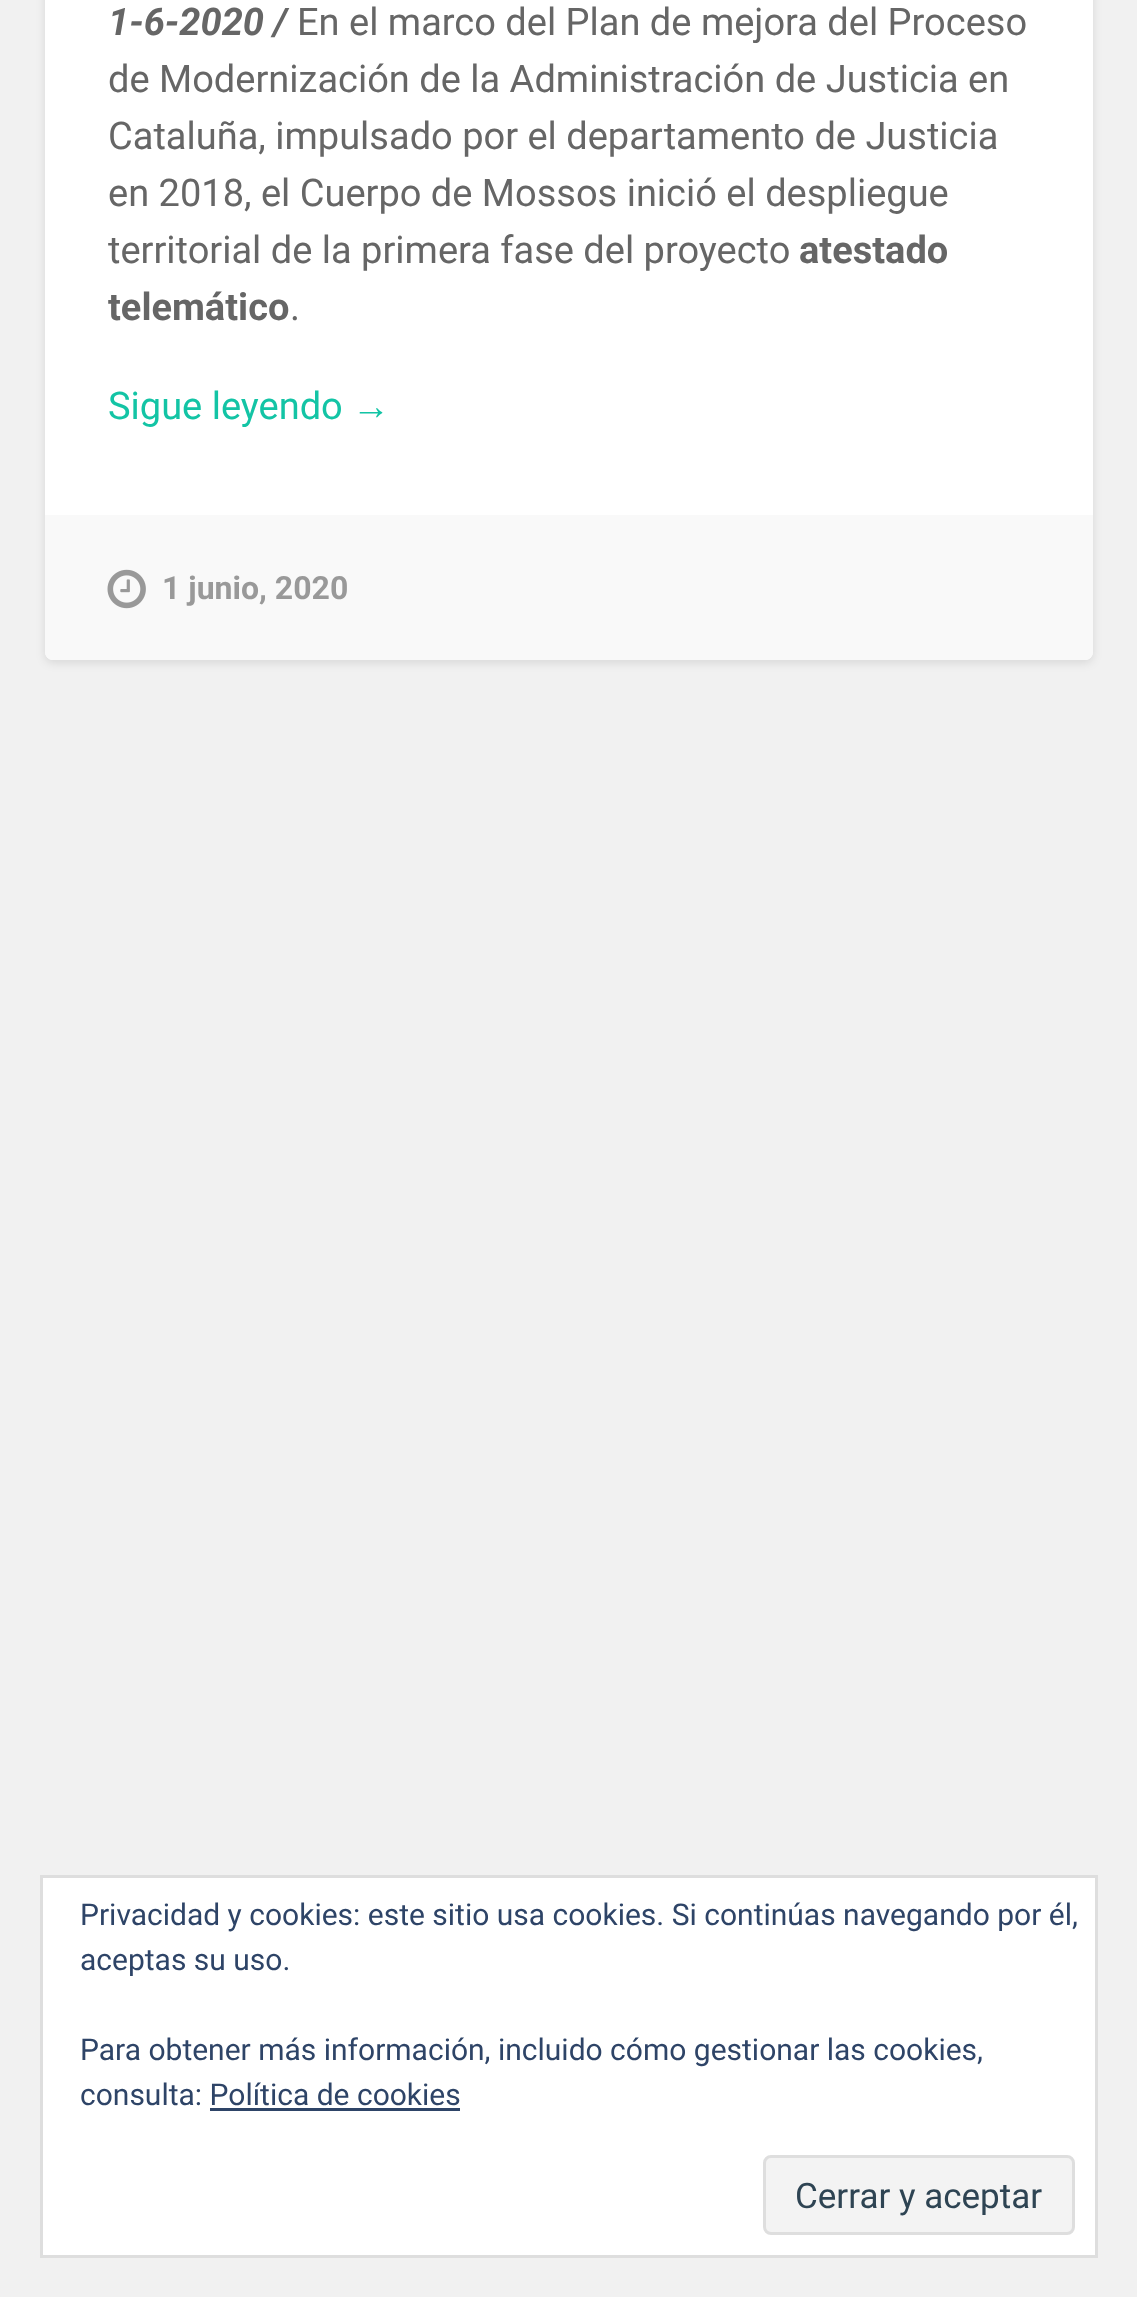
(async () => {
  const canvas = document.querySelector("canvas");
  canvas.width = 1137;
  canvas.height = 2297;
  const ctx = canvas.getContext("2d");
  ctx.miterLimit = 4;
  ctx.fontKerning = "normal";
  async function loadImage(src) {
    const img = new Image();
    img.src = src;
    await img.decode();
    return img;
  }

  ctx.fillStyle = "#f1f1f1";
  ctx.fillRect(0, 0, 1137, 2297);
  ctx.fillStyle = "rgba(0, 0, 0, 0.1)";
  ctx.filter = "blur(5px)";
  ctx.beginPath();
  ctx.roundRect(45, -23, 1048, 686, 8);
  ctx.fill();
  ctx.filter = "none";
  ctx.fillStyle = "#ffffff";
  ctx.beginPath();
  ctx.roundRect(45, -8, 1048, 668, 8);
  ctx.fill();
  ctx.fillStyle = "#f9f9f9";
  ctx.beginPath();
  ctx.roundRect(45, 515, 1048, 145, [0, 0, 8, 8]);
  ctx.fill();
  ctx.drawImage(await loadImage("img/1.png"), 107, 569, 39, 40);
  ctx.fillStyle = "#ffffff";
  ctx.beginPath();
  ctx.rect(41.5, 1876.5, 1055, 380);
  ctx.fill();
  ctx.strokeStyle = "#dedede";
  ctx.lineWidth = 3;
  ctx.stroke();
  ctx.fillStyle = "#2e4467";
  ctx.fillRect(210, 2108, 250, 3);
  ctx.fillStyle = "#f3f3f3";
  ctx.beginPath();
  ctx.roundRect(764.5, 2156.5, 309, 77, 6.5);
  ctx.fill();
  ctx.stroke();
  ctx.font = "italic bold 38px Roboto";
  ctx.fillStyle = "#666666";
  ctx.fillText("1-6-2020 /", 108, 35);
  ctx.font = "38px Roboto";
  for (const [text, x, y] of [
    ["En el marco del Plan de mejora del Proceso", 297, 35],
    ["de Modernización de la Administración de Justicia en", 108, 92],
    ["Cataluña, impulsado por el departamento de Justicia", 108, 149],
    ["en 2018, el Cuerpo de Mossos inició el despliegue", 108, 206],
    ["territorial de la primera fase del proyecto", 108, 263],
  ]) {
    ctx.fillText(text, x, y);
  }
  ctx.font = "bold 38px Roboto";
  ctx.fillText("atestado", 799, 263);
  ctx.fillText("telemático", 108, 320);
  ctx.font = "38px Roboto";
  ctx.fillText(".", 290, 320);
  ctx.fillStyle = "#13c4a5";
  ctx.fillText("Sigue leyendo", 108, 419);
  ctx.font = "38px Liberation Sans";
  ctx.fillText("→", 352, 419);
  ctx.font = "bold 32px Roboto";
  ctx.fillStyle = "#999999";
  ctx.fillText("1 junio, 2020", 162, 599);
  ctx.font = "30px Roboto";
  ctx.fillStyle = "#2e4467";
  for (const [text, x, y] of [
    ["Privacidad y cookies: este sitio usa cookies. Si continúas navegando por él,", 80, 1925],
    ["aceptas su uso.", 80, 1970],
    ["Para obtener más información, incluido cómo gestionar las cookies,", 80, 2060],
    ["consulta: Política de cookies", 80, 2105],
  ]) {
    ctx.fillText(text, x, y);
  }
  ctx.font = "35px Roboto";
  ctx.fillStyle = "#2e4453";
  ctx.fillText("Cerrar y aceptar", 795, 2208);
})();
